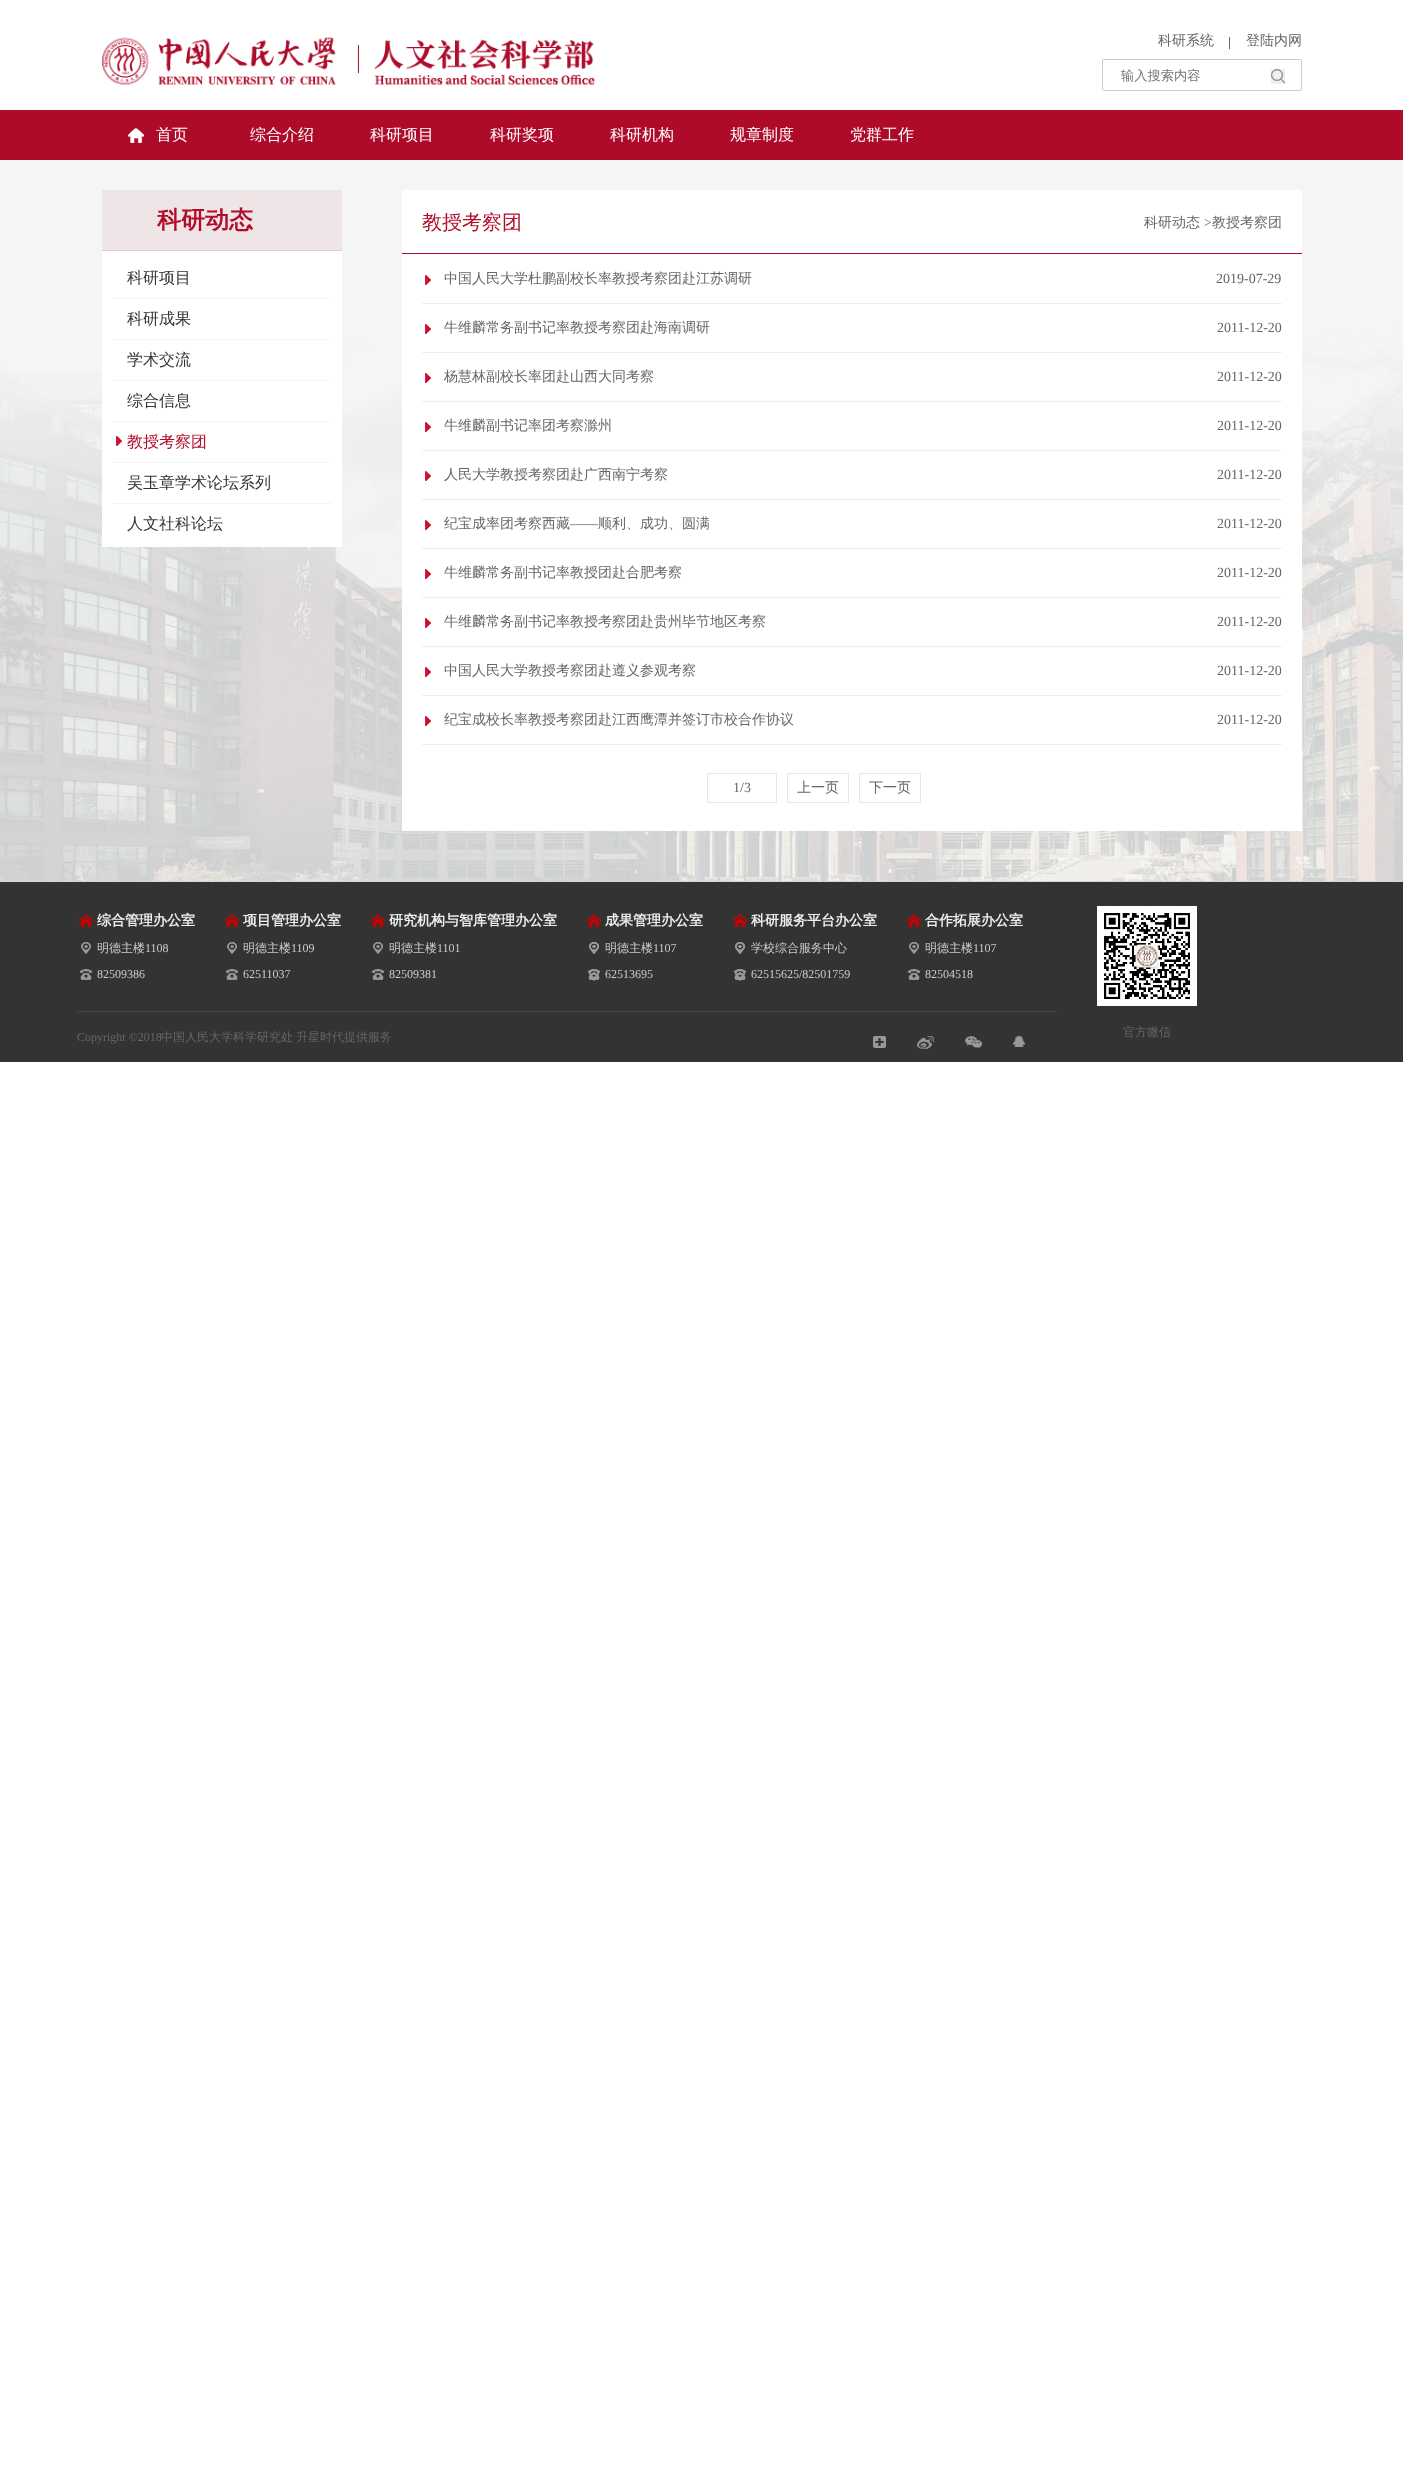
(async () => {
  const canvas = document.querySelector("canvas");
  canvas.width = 1403;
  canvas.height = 2480;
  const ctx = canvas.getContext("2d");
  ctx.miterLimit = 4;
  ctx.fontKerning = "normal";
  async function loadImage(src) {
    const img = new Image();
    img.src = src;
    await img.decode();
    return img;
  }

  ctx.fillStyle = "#ffffff";
  ctx.fillRect(0, 0, 1403, 2480);
  ctx.drawImage(await loadImage("img/1.png"), 102, 37, 493, 48);
  ctx.fillStyle = "#666666";
  ctx.fillRect(1229, 37, 1, 12);
  ctx.beginPath();
  ctx.roundRect(1102.5, 59.5, 199, 31, 1.5);
  ctx.strokeStyle = "#cccccc";
  ctx.stroke();
  ctx.fillStyle = "#efefef";
  ctx.fillRect(1271, 69, 14, 15);
  ctx.drawImage(await loadImage("img/2.png"), 1271, 69, 14, 15);
  ctx.fillStyle = "#ad0b29";
  ctx.fillRect(0, 110, 1403, 50);
  ctx.drawImage(await loadImage("img/3.png"), 128, 128, 16, 15);
  ctx.drawImage(await loadImage("img/4.png"), 0, 160, 1403, 721);
  for (const [x, y, w, h, color] of [
    [102, 190, 240, 60, "#efe4e6"],
    [102, 250, 240, 1, "#e8ccd1"],
    [102, 251, 240, 296, "#ffffff"],
    [112, 298, 220, 1, "#f4f6f6"],
    [112, 339, 220, 1, "#f4f6f6"],
    [112, 380, 220, 1, "#f4f6f6"],
    [112, 421, 220, 1, "#f4f6f6"],
    [112, 462, 220, 1, "#f4f6f6"],
  ]) {
    ctx.fillStyle = color;
    ctx.fillRect(x, y, w, h);
  }
  ctx.drawImage(await loadImage("img/5.png"), 116, 436, 6, 10);
  for (const [x, y, w, h, color] of [
    [112, 503, 220, 1, "#f4f6f6"],
    [402, 190, 900, 641, "#ffffff"],
    [402, 253, 900, 1, "#ad0b29"],
    [422, 303, 860, 1, "#eeeeee"],
  ]) {
    ctx.fillStyle = color;
    ctx.fillRect(x, y, w, h);
  }
  ctx.drawImage(await loadImage("img/5.png"), 425, 275, 6, 10);
  ctx.fillRect(422, 352, 860, 1);
  ctx.drawImage(await loadImage("img/5.png"), 425, 324, 6, 10);
  ctx.fillRect(422, 401, 860, 1);
  ctx.drawImage(await loadImage("img/5.png"), 425, 373, 6, 10);
  ctx.fillRect(422, 450, 860, 1);
  ctx.drawImage(await loadImage("img/5.png"), 425, 422, 6, 10);
  ctx.fillRect(422, 499, 860, 1);
  ctx.drawImage(await loadImage("img/5.png"), 425, 471, 6, 10);
  ctx.fillRect(422, 548, 860, 1);
  ctx.drawImage(await loadImage("img/5.png"), 425, 520, 6, 10);
  ctx.fillRect(422, 597, 860, 1);
  ctx.drawImage(await loadImage("img/5.png"), 425, 569, 6, 10);
  ctx.fillRect(422, 646, 860, 1);
  ctx.drawImage(await loadImage("img/5.png"), 425, 618, 6, 10);
  ctx.fillRect(422, 695, 860, 1);
  ctx.drawImage(await loadImage("img/5.png"), 425, 667, 6, 10);
  ctx.fillRect(422, 744, 860, 1);
  ctx.drawImage(await loadImage("img/5.png"), 425, 716, 6, 10);
  ctx.strokeStyle = "#e6e6e6";
  ctx.strokeRect(707.5, 773.5, 69, 29);
  ctx.strokeRect(787.5, 773.5, 61, 29);
  ctx.strokeRect(859.5, 773.5, 61, 29);
  for (const [x, y, w, h, color] of [
    [0, 882, 1403, 180, "#333333"],
    [0, 881, 1403, 1, "#d6d6d6"],
    [77, 1011, 980, 1, "#484848"],
  ]) {
    ctx.fillStyle = color;
    ctx.fillRect(x, y, w, h);
  }
  ctx.drawImage(await loadImage("img/6.png"), 79, 914, 14, 13);
  ctx.drawImage(await loadImage("img/7.png"), 81, 942, 10, 12);
  ctx.drawImage(await loadImage("img/8.png"), 80, 969, 12, 11);
  ctx.drawImage(await loadImage("img/6.png"), 225, 914, 14, 13);
  ctx.drawImage(await loadImage("img/7.png"), 227, 942, 10, 12);
  ctx.drawImage(await loadImage("img/8.png"), 226, 969, 12, 11);
  ctx.drawImage(await loadImage("img/6.png"), 371, 914, 14, 13);
  ctx.drawImage(await loadImage("img/7.png"), 373, 942, 10, 12);
  ctx.drawImage(await loadImage("img/8.png"), 372, 969, 12, 11);
  ctx.drawImage(await loadImage("img/6.png"), 587, 914, 14, 13);
  ctx.drawImage(await loadImage("img/7.png"), 589, 942, 10, 12);
  ctx.drawImage(await loadImage("img/9.png"), 589, 942, 10, 12);
  ctx.drawImage(await loadImage("img/7.png"), 589, 969, 10, 12);
  ctx.drawImage(await loadImage("img/10.png"), 588, 969, 12, 11);
  ctx.drawImage(await loadImage("img/6.png"), 733, 914, 14, 13);
  ctx.drawImage(await loadImage("img/7.png"), 735, 942, 10, 12);
  ctx.drawImage(await loadImage("img/9.png"), 735, 942, 10, 12);
  ctx.drawImage(await loadImage("img/7.png"), 735, 969, 10, 12);
  ctx.drawImage(await loadImage("img/10.png"), 734, 969, 12, 11);
  ctx.drawImage(await loadImage("img/6.png"), 907, 914, 14, 13);
  ctx.drawImage(await loadImage("img/7.png"), 909, 942, 10, 12);
  ctx.drawImage(await loadImage("img/8.png"), 908, 969, 12, 11);
  ctx.drawImage(await loadImage("img/11.png"), 873, 1036, 13, 12);
  ctx.drawImage(await loadImage("img/12.png"), 917, 1036, 17, 13);
  ctx.drawImage(await loadImage("img/13.png"), 965, 1036, 17, 12);
  ctx.drawImage(await loadImage("img/14.png"), 1013, 1036, 12, 11);
  ctx.drawImage(await loadImage("img/15.png"), 1097, 906, 100, 100);
  ctx.font = "500 14px WenQuanYi Zen Hei";
  ctx.fillStyle = "#666666";
  ctx.fillText("科研系统", 1158, 45);
  ctx.fillText("登陆内网", 1246, 45);
  ctx.font = "500 13.25px WenQuanYi Zen Hei";
  ctx.fillStyle = "#757575";
  ctx.fillText("输入搜索内容", 1121, 80);
  ctx.font = "500 16px WenQuanYi Zen Hei";
  ctx.fillStyle = "#ffffff";
  for (const [text, x, y] of [
    ["首页", 156, 140],
    ["综合介绍", 250, 140],
    ["科研项目", 370, 140],
    ["科研奖项", 490, 140],
    ["科研机构", 610, 140],
    ["规章制度", 730, 140],
    ["党群工作", 850, 140],
  ]) {
    ctx.fillText(text, x, y);
  }
  ctx.font = "bold 24px WenQuanYi Zen Hei";
  ctx.fillStyle = "#b20c2b";
  ctx.fillText("科研动态", 157, 228);
  ctx.font = "500 16px WenQuanYi Zen Hei";
  ctx.fillStyle = "#333333";
  for (const [text, x, y] of [
    ["科研项目", 127, 283],
    ["科研成果", 127, 324],
    ["学术交流", 127, 365],
    ["综合信息", 127, 406],
  ]) {
    ctx.fillText(text, x, y);
  }
  ctx.fillStyle = "#b20c2b";
  ctx.fillText("教授考察团", 127, 447);
  ctx.fillStyle = "#333333";
  ctx.fillText("吴玉章学术论坛系列", 127, 488);
  ctx.fillText("人文社科论坛", 127, 529);
  ctx.font = "500 20px WenQuanYi Zen Hei";
  ctx.fillStyle = "#b20c2b";
  ctx.fillText("教授考察团", 422, 229);
  ctx.font = "500 14px WenQuanYi Zen Hei";
  ctx.fillStyle = "#666666";
  ctx.fillText("科研动态", 1144, 227);
  ctx.font = "14px Liberation Serif";
  ctx.fillText(">", 1204, 227);
  ctx.font = "500 14px WenQuanYi Zen Hei";
  ctx.fillText("教授考察团", 1212, 227);
  ctx.fillText("中国人民大学杜鹏副校长率教授考察团赴江苏调研", 444, 283);
  ctx.font = "14px Liberation Serif";
  ctx.fillText("2019-07-29", 1216, 283);
  ctx.font = "500 14px WenQuanYi Zen Hei";
  ctx.fillText("牛维麟常务副书记率教授考察团赴海南调研", 444, 332);
  ctx.font = "14px Liberation Serif";
  ctx.fillText("2011-12-20", 1217, 332);
  ctx.font = "500 14px WenQuanYi Zen Hei";
  ctx.fillText("杨慧林副校长率团赴山西大同考察", 444, 381);
  ctx.font = "14px Liberation Serif";
  ctx.fillText("2011-12-20", 1217, 381);
  ctx.font = "500 14px WenQuanYi Zen Hei";
  ctx.fillText("牛维麟副书记率团考察滁州", 444, 430);
  ctx.font = "14px Liberation Serif";
  ctx.fillText("2011-12-20", 1217, 430);
  ctx.font = "500 14px WenQuanYi Zen Hei";
  ctx.fillText("人民大学教授考察团赴广西南宁考察", 444, 479);
  ctx.font = "14px Liberation Serif";
  ctx.fillText("2011-12-20", 1217, 479);
  ctx.font = "500 14px WenQuanYi Zen Hei";
  ctx.fillText("纪宝成率团考察西藏", 444, 528);
  ctx.font = "14px Liberation Serif";
  ctx.fillText("——", 570, 528);
  ctx.font = "500 14px WenQuanYi Zen Hei";
  ctx.fillText("顺利、成功、圆满", 598, 528);
  ctx.font = "14px Liberation Serif";
  ctx.fillText("2011-12-20", 1217, 528);
  ctx.font = "500 14px WenQuanYi Zen Hei";
  ctx.fillText("牛维麟常务副书记率教授团赴合肥考察", 444, 577);
  ctx.font = "14px Liberation Serif";
  ctx.fillText("2011-12-20", 1217, 577);
  ctx.font = "500 14px WenQuanYi Zen Hei";
  ctx.fillText("牛维麟常务副书记率教授考察团赴贵州毕节地区考察", 444, 626);
  ctx.font = "14px Liberation Serif";
  ctx.fillText("2011-12-20", 1217, 626);
  ctx.font = "500 14px WenQuanYi Zen Hei";
  ctx.fillText("中国人民大学教授考察团赴遵义参观考察", 444, 675);
  ctx.font = "14px Liberation Serif";
  ctx.fillText("2011-12-20", 1217, 675);
  ctx.font = "500 14px WenQuanYi Zen Hei";
  ctx.fillText("纪宝成校长率教授考察团赴江西鹰潭并签订市校合作协议", 444, 724);
  ctx.font = "14px Liberation Serif";
  ctx.fillText("2011-12-20", 1217, 724);
  ctx.fillText("1/3", 733, 792);
  ctx.font = "500 14px WenQuanYi Zen Hei";
  ctx.fillText("上一页", 797, 792);
  ctx.fillText("下一页", 869, 792);
  ctx.font = "bold 14px WenQuanYi Zen Hei";
  ctx.fillStyle = "#eeeeee";
  ctx.fillText("综合管理办公室", 97, 925);
  ctx.font = "500 12px WenQuanYi Zen Hei";
  ctx.fillStyle = "#cccccc";
  ctx.fillText("明德主楼", 97, 952);
  ctx.font = "12px Liberation Serif";
  ctx.fillText("1108", 145, 952);
  ctx.fillText("82509386", 97, 978);
  ctx.font = "bold 14px WenQuanYi Zen Hei";
  ctx.fillStyle = "#eeeeee";
  ctx.fillText("项目管理办公室", 243, 925);
  ctx.font = "500 12px WenQuanYi Zen Hei";
  ctx.fillStyle = "#cccccc";
  ctx.fillText("明德主楼", 243, 952);
  ctx.font = "12px Liberation Serif";
  ctx.fillText("1109", 291, 952);
  ctx.fillText("62511037", 243, 978);
  ctx.font = "bold 14px WenQuanYi Zen Hei";
  ctx.fillStyle = "#eeeeee";
  ctx.fillText("研究机构与智库管理办公室", 389, 925);
  ctx.font = "500 12px WenQuanYi Zen Hei";
  ctx.fillStyle = "#cccccc";
  ctx.fillText("明德主楼", 389, 952);
  ctx.font = "12px Liberation Serif";
  ctx.fillText("1101", 437, 952);
  ctx.fillText("82509381", 389, 978);
  ctx.font = "bold 14px WenQuanYi Zen Hei";
  ctx.fillStyle = "#eeeeee";
  ctx.fillText("成果管理办公室", 605, 925);
  ctx.font = "500 12px WenQuanYi Zen Hei";
  ctx.fillStyle = "#cccccc";
  ctx.fillText("明德主楼", 605, 952);
  ctx.font = "12px Liberation Serif";
  ctx.fillText("1107", 653, 952);
  ctx.fillText("62513695", 605, 978);
  ctx.font = "bold 14px WenQuanYi Zen Hei";
  ctx.fillStyle = "#eeeeee";
  ctx.fillText("科研服务平台办公室", 751, 925);
  ctx.font = "500 12px WenQuanYi Zen Hei";
  ctx.fillStyle = "#cccccc";
  ctx.fillText("学校综合服务中心", 751, 952);
  ctx.font = "12px Liberation Serif";
  ctx.fillText("62515625/82501759", 751, 978);
  ctx.font = "bold 14px WenQuanYi Zen Hei";
  ctx.fillStyle = "#eeeeee";
  ctx.fillText("合作拓展办公室", 925, 925);
  ctx.font = "500 12px WenQuanYi Zen Hei";
  ctx.fillStyle = "#cccccc";
  ctx.fillText("明德主楼", 925, 952);
  ctx.font = "12px Liberation Serif";
  ctx.fillText("1107", 973, 952);
  ctx.fillText("82504518", 925, 978);
  ctx.fillStyle = "#666666";
  ctx.fillText("Copyright ©2018", 77, 1041);
  ctx.font = "500 12px WenQuanYi Zen Hei";
  for (const [text, x, y] of [
    ["中国人民大学科学研究处", 161, 1041],
    ["升星时代提供服务", 296, 1041],
    ["官方微信", 1123, 1036],
  ]) {
    ctx.fillText(text, x, y);
  }
})();
